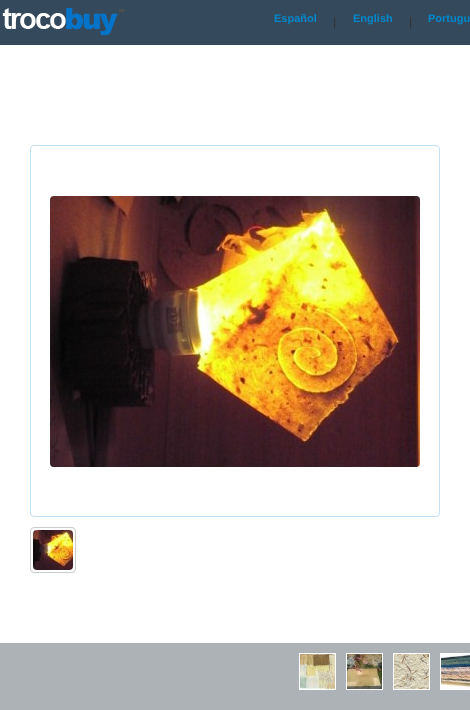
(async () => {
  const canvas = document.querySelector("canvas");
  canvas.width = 470;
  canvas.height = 710;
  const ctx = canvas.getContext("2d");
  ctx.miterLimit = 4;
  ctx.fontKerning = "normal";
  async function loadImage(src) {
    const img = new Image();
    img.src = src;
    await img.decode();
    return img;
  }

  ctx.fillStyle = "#ffffff";
  ctx.fillRect(0, 0, 470, 710);
  ctx.fillStyle = "#35495c";
  ctx.fillRect(0, 0, 470, 45);
  ctx.drawImage(await loadImage("img/1.png"), 2, 8, 123, 28);
  ctx.beginPath();
  ctx.roundRect(30.5, 145.5, 409, 371, 3.5);
  ctx.strokeStyle = "#c2e0f5";
  ctx.stroke();
  ctx.drawImage(await loadImage("img/2.png"), 50, 196, 370, 271);
  ctx.beginPath();
  ctx.roundRect(30.5, 527.5, 45, 45, 3.5);
  ctx.strokeStyle = "#cccccc";
  ctx.stroke();
  ctx.drawImage(await loadImage("img/3.png"), 33, 530, 40, 40);
  ctx.fillStyle = "#adb2b6";
  ctx.fillRect(0, 643, 470, 67);
  ctx.strokeStyle = "#ffffff";
  ctx.strokeRect(299.5, 653.5, 36, 36);
  ctx.strokeRect(346.5, 653.5, 36, 36);
  ctx.strokeRect(393.5, 653.5, 36, 36);
  ctx.strokeRect(440.5, 653.5, 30, 36);
  ctx.drawImage(await loadImage("img/4.png"), 300, 654, 35, 35);
  ctx.drawImage(await loadImage("img/5.png"), 347, 654, 35, 35);
  ctx.drawImage(await loadImage("img/6.png"), 394, 654, 35, 35);
  ctx.drawImage(await loadImage("img/7.png"), 441, 654, 29, 35);
  ctx.font = "bold 11px Liberation Sans";
  ctx.fillStyle = "#0088cc";
  ctx.fillText("Español", 274, 22);
  ctx.font = "12px Liberation Sans";
  ctx.fillStyle = "#333333";
  ctx.fillText("|", 333, 26);
  ctx.font = "bold 11px Liberation Sans";
  ctx.fillStyle = "#0088cc";
  ctx.fillText("English", 353, 22);
  ctx.font = "12px Liberation Sans";
  ctx.fillStyle = "#333333";
  ctx.fillText("|", 409, 26);
  ctx.font = "bold 11px Liberation Sans";
  ctx.fillStyle = "#0088cc";
  ctx.fillText("Portugu", 428, 22);
})();
